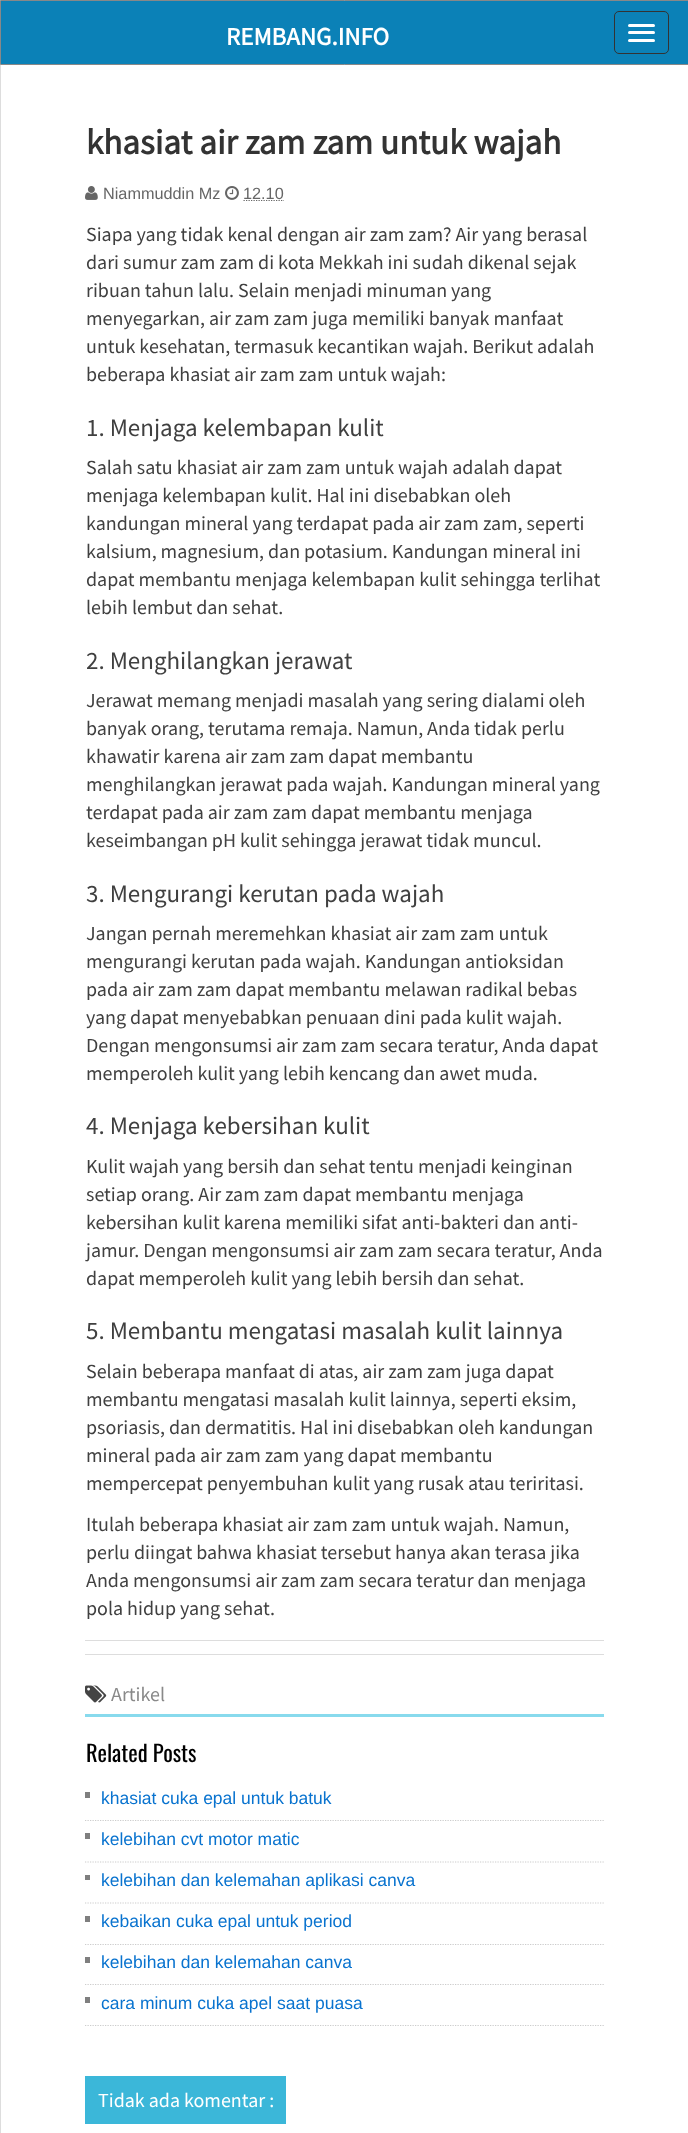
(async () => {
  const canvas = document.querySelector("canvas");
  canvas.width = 688;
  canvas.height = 2133;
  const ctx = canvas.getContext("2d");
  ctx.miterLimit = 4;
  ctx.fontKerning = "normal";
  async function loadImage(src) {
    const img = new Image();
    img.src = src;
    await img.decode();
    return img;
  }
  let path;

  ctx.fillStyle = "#ffffff";
  ctx.fillRect(0, 0, 688, 2133);
  ctx.fillStyle = "#0b81b7";
  ctx.beginPath();
  ctx.rect(0.5, 0.5, 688, 64);
  ctx.fill();
  ctx.strokeStyle = "#888888";
  ctx.stroke();
  ctx.beginPath();
  ctx.roundRect(614.5, 11.5, 54, 42, 4.5);
  ctx.strokeStyle = "#333333";
  ctx.stroke();
  ctx.fillStyle = "#ffffff";
  ctx.beginPath();
  ctx.roundRect(628, 24, 27, 3, 1.5);
  ctx.fill();
  ctx.beginPath();
  ctx.roundRect(628, 31, 27, 3, 1.5);
  ctx.fill();
  ctx.beginPath();
  ctx.roundRect(628, 39, 27, 3, 1.5);
  ctx.fill();
  ctx.fillStyle = "#dddddd";
  ctx.fillRect(0, 65, 1, 2068);
  ctx.drawImage(await loadImage("img/1.png"), 85, 186, 13, 14);
  ctx.drawImage(await loadImage("img/2.png"), 225, 186, 14, 14);
  path = new Path2D("M243.5 200.5H284");
  ctx.strokeStyle = "#666666";
  ctx.lineWidth = 1.2;
  ctx.setLineDash([1.25, 1.25]);
  ctx.stroke(path);
  ctx.fillRect(85, 1640, 519, 1);
  ctx.fillRect(85, 1654, 519, 1);
  ctx.drawImage(await loadImage("img/3.png"), 85, 1685, 22, 18);
  ctx.fillStyle = "#88daed";
  ctx.fillRect(85, 1714, 519, 3);
  ctx.fillStyle = "#7f7f7f";
  ctx.fillRect(85, 1792, 5, 6);
  path = new Path2D("M85 1820.5H604");
  ctx.strokeStyle = "#cccccc";
  ctx.stroke(path);
  ctx.fillRect(85, 1833, 5, 6);
  path = new Path2D("M85 1862H604");
  ctx.stroke(path);
  ctx.fillRect(85, 1875, 5, 5);
  path = new Path2D("M85 1903H604");
  ctx.stroke(path);
  ctx.fillRect(85, 1916, 5, 6);
  path = new Path2D("M85 1944.5H604");
  ctx.stroke(path);
  ctx.fillRect(85, 1957, 5, 6);
  path = new Path2D("M85 1984.5H604");
  ctx.stroke(path);
  ctx.fillRect(85, 1997, 5, 6);
  path = new Path2D("M85 2025.5H604");
  ctx.stroke(path);
  ctx.fillStyle = "#3bb7d9";
  ctx.fillRect(85, 2076, 201, 48);
  ctx.font = "bold 25px Source Sans Pro";
  ctx.fillStyle = "#ffffff";
  ctx.fillText("REMBANG.INFO", 226, 45);
  ctx.font = "bold 35px Source Sans Pro";
  ctx.fillStyle = "#333333";
  ctx.fillText("khasiat air zam zam untuk wajah", 86, 154);
  ctx.font = "16.25px Liberation Sans";
  ctx.fillStyle = "#666666";
  ctx.fillText("Niammuddin Mz", 103, 199);
  ctx.fillText("12.10", 243, 199);
  ctx.font = "20px Source Sans Pro";
  ctx.fillStyle = "#404040";
  for (const [text, x, y] of [
    ["Siapa yang tidak kenal dengan air zam zam? Air yang berasal", 86, 241],
    ["dari sumur zam zam di kota Mekkah ini sudah dikenal sejak", 86, 269],
    ["ribuan tahun lalu. Selain menjadi minuman yang", 86, 297],
    ["menyegarkan, air zam zam juga memiliki banyak manfaat", 86, 325],
    ["untuk kesehatan, termasuk kecantikan wajah. Berikut adalah", 86, 353],
    ["beberapa khasiat air zam zam untuk wajah:", 86, 381],
  ]) {
    ctx.fillText(text, x, y);
  }
  ctx.font = "25px Source Sans Pro";
  ctx.fillText("1. Menjaga kelembapan kulit", 86, 436);
  ctx.font = "20px Source Sans Pro";
  for (const [text, x, y] of [
    ["Salah satu khasiat air zam zam untuk wajah adalah dapat", 86, 474],
    ["menjaga kelembapan kulit. Hal ini disebabkan oleh", 86, 502],
    ["kandungan mineral yang terdapat pada air zam zam, seperti", 86, 530],
    ["kalsium, magnesium, dan potasium. Kandungan mineral ini", 86, 558],
    ["dapat membantu menjaga kelembapan kulit sehingga terlihat", 86, 586],
    ["lebih lembut dan sehat.", 86, 614],
  ]) {
    ctx.fillText(text, x, y);
  }
  ctx.font = "25px Source Sans Pro";
  ctx.fillText("2. Menghilangkan jerawat", 86, 669);
  ctx.font = "20px Source Sans Pro";
  for (const [text, x, y] of [
    ["Jerawat memang menjadi masalah yang sering dialami oleh", 86, 707],
    ["banyak orang, terutama remaja. Namun, Anda tidak perlu", 86, 735],
    ["khawatir karena air zam zam dapat membantu", 86, 763],
    ["menghilangkan jerawat pada wajah. Kandungan mineral yang", 86, 791],
    ["terdapat pada air zam zam dapat membantu menjaga", 86, 819],
    ["keseimbangan pH kulit sehingga jerawat tidak muncul.", 86, 847],
  ]) {
    ctx.fillText(text, x, y);
  }
  ctx.font = "25px Source Sans Pro";
  ctx.fillText("3. Mengurangi kerutan pada wajah", 86, 902);
  ctx.font = "20px Source Sans Pro";
  for (const [text, x, y] of [
    ["Jangan pernah meremehkan khasiat air zam zam untuk", 86, 940],
    ["mengurangi kerutan pada wajah. Kandungan antioksidan", 86, 968],
    ["pada air zam zam dapat membantu melawan radikal bebas", 86, 996],
    ["yang dapat menyebabkan penuaan dini pada kulit wajah.", 86, 1024],
    ["Dengan mengonsumsi air zam zam secara teratur, Anda dapat", 86, 1052],
    ["memperoleh kulit yang lebih kencang dan awet muda.", 86, 1080],
  ]) {
    ctx.fillText(text, x, y);
  }
  ctx.font = "25px Source Sans Pro";
  ctx.fillText("4. Menjaga kebersihan kulit", 86, 1134);
  ctx.font = "20px Source Sans Pro";
  for (const [text, x, y] of [
    ["Kulit wajah yang bersih dan sehat tentu menjadi keinginan", 86, 1173],
    ["setiap orang. Air zam zam dapat membantu menjaga", 86, 1201],
    ["kebersihan kulit karena memiliki sifat anti-bakteri dan anti-", 86, 1229],
    ["jamur. Dengan mengonsumsi air zam zam secara teratur, Anda", 86, 1257],
    ["dapat memperoleh kulit yang lebih bersih dan sehat.", 86, 1285],
  ]) {
    ctx.fillText(text, x, y);
  }
  ctx.font = "25px Source Sans Pro";
  ctx.fillText("5. Membantu mengatasi masalah kulit lainnya", 86, 1339);
  ctx.font = "20px Source Sans Pro";
  for (const [text, x, y] of [
    ["Selain beberapa manfaat di atas, air zam zam juga dapat", 86, 1378],
    ["membantu mengatasi masalah kulit lainnya, seperti eksim,", 86, 1406],
    ["psoriasis, dan dermatitis. Hal ini disebabkan oleh kandungan", 86, 1434],
    ["mineral pada air zam zam yang dapat membantu", 86, 1462],
    ["mempercepat penyembuhan kulit yang rusak atau teriritasi.", 86, 1490],
    ["Itulah beberapa khasiat air zam zam untuk wajah. Namun,", 86, 1531],
    ["perlu diingat bahwa khasiat tersebut hanya akan terasa jika", 86, 1559],
    ["Anda mengonsumsi air zam zam secara teratur dan menjaga", 86, 1587],
    ["pola hidup yang sehat.", 86, 1615],
  ]) {
    ctx.fillText(text, x, y);
  }
  ctx.fillStyle = "#898989";
  ctx.fillText("Artikel", 111, 1701);
  ctx.font = "22.5px Oswald";
  ctx.fillStyle = "#000000";
  ctx.fillText("Related Posts", 86, 1762);
  ctx.font = "17.5px Liberation Sans";
  ctx.fillStyle = "#0973cf";
  for (const [text, x, y] of [
    ["khasiat cuka epal untuk batuk", 101, 1804],
    ["kelebihan cvt motor matic", 101, 1845],
    ["kelebihan dan kelemahan aplikasi canva", 101, 1886],
    ["kebaikan cuka epal untuk period", 101, 1927],
    ["kelebihan dan kelemahan canva", 101, 1968],
    ["cara minum cuka apel saat puasa", 101, 2009],
  ]) {
    ctx.fillText(text, x, y);
  }
  ctx.font = "20px Source Sans Pro";
  ctx.fillStyle = "#ffffff";
  ctx.fillText("Tidak ada komentar :", 98, 2107);
})();
